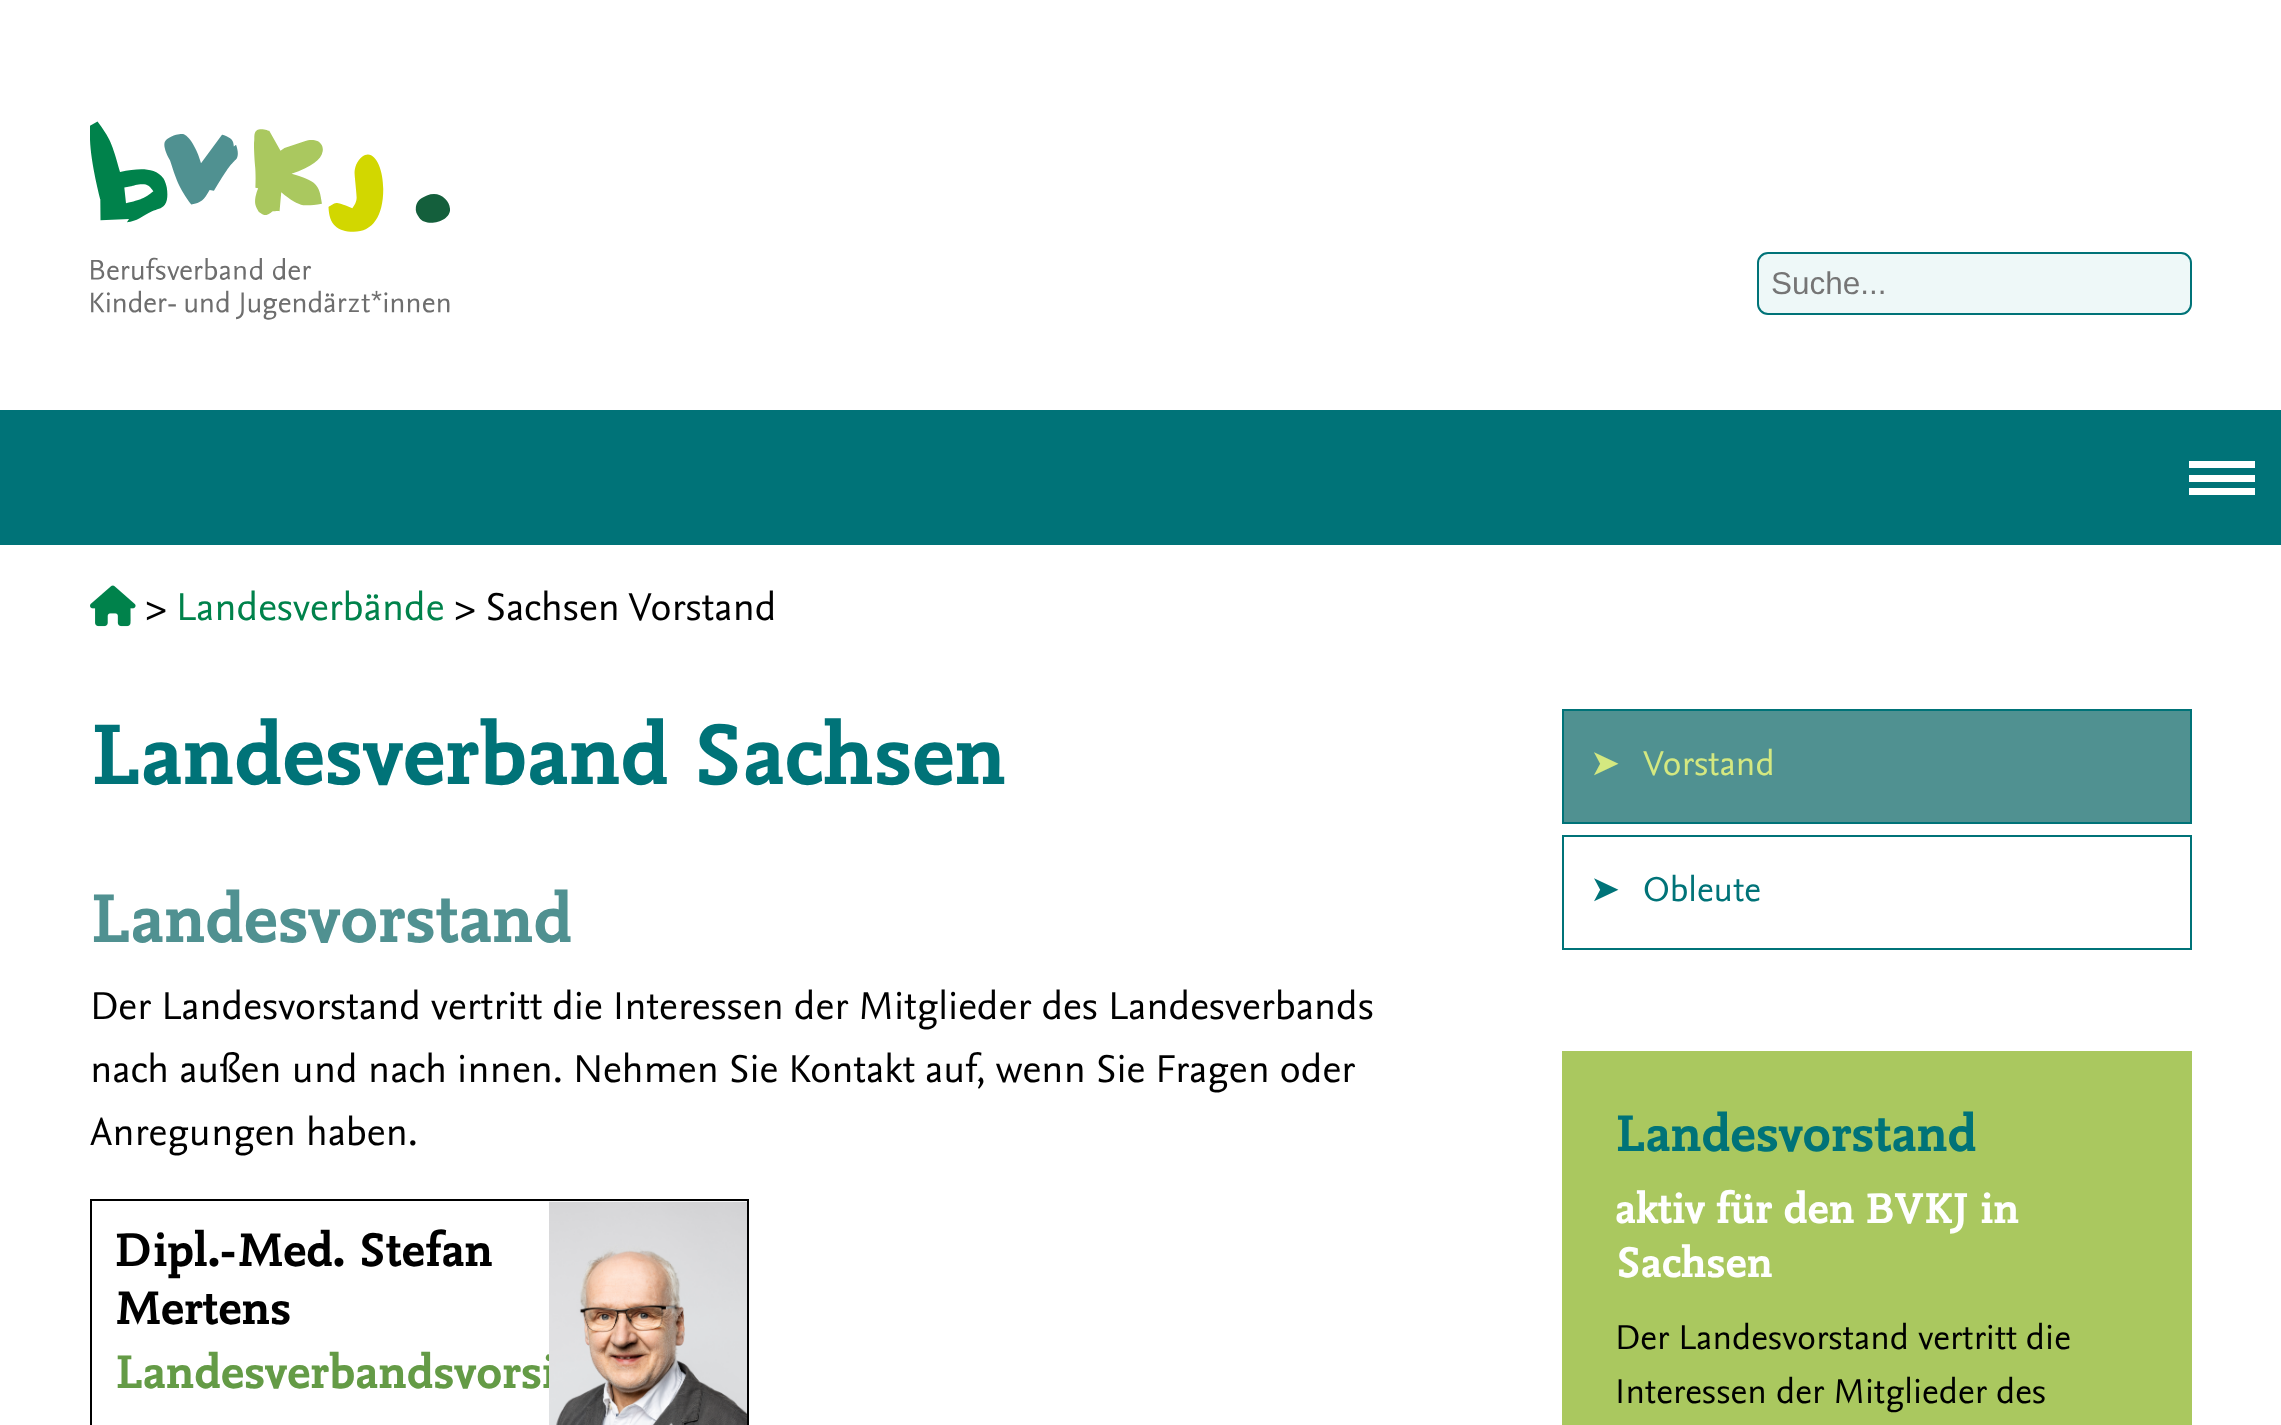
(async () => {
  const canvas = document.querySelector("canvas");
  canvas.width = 2281;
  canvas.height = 1425;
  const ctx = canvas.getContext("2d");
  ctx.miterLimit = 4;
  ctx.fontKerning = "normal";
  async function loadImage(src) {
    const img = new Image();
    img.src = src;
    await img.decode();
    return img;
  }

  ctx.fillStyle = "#ffffff";
  ctx.fillRect(0, 0, 2281, 1425);
  ctx.drawImage(await loadImage("img/1.png"), 90, 121, 360, 199);
  ctx.fillStyle = "#eef8f8";
  ctx.beginPath();
  ctx.roundRect(1758, 253, 433, 61, 10);
  ctx.fill();
  ctx.strokeStyle = "#007378";
  ctx.lineWidth = 2;
  ctx.stroke();
  for (const [x, y, w, h, color] of [
    [0, 410, 2281, 135, "#007378"],
    [2189, 461, 66, 7, "#ffffff"],
    [2189, 475, 66, 7, "#ffffff"],
    [2189, 488, 66, 7, "#ffffff"],
  ]) {
    ctx.fillStyle = color;
    ctx.fillRect(x, y, w, h);
  }
  ctx.drawImage(await loadImage("img/2.png"), 90, 585, 46, 42);
  ctx.strokeStyle = "#000000";
  ctx.strokeRect(91, 1200, 657, 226);
  ctx.fillStyle = "#509191";
  ctx.beginPath();
  ctx.rect(1563, 710, 628, 113);
  ctx.fill();
  ctx.strokeStyle = "#007378";
  ctx.stroke();
  ctx.strokeRect(1563, 836, 628, 113);
  ctx.fillStyle = "#aac85f";
  ctx.fillRect(1562, 1051, 630, 374);
  ctx.font = "31.5px Liberation Sans";
  ctx.fillStyle = "#757575";
  ctx.fillText("Suche...", 1771, 294);
  ctx.font = "40.5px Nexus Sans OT";
  ctx.fillStyle = "#000000";
  ctx.fillText(">", 146, 620);
  ctx.fillStyle = "#00824b";
  ctx.fillText("Landesverbände", 176, 620);
  ctx.fillStyle = "#000000";
  ctx.fillText("> Sachsen Vorstand", 455, 620);
  ctx.font = "bold 90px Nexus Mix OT";
  ctx.fillStyle = "#007378";
  ctx.fillText("Landesverband Sachsen", 90, 784);
  ctx.font = "bold 72px Nexus Mix OT";
  ctx.fillStyle = "#509191";
  ctx.fillText("Landesvorstand", 90, 942);
  ctx.font = "40.5px Nexus Sans OT";
  ctx.fillStyle = "#000000";
  for (const [text, x, y] of [
    ["Der Landesvorstand vertritt die Interessen der Mitglieder des Landesverbands", 90, 1019],
    ["nach außen und nach innen. Nehmen Sie Kontakt auf, wenn Sie Fragen oder", 90, 1082],
    ["Anregungen haben.", 90, 1145],
  ]) {
    ctx.fillText(text, x, y);
  }
  ctx.font = "bold 49.5px Nexus Mix OT";
  ctx.fillText("Dipl.-Med. Stefan", 115, 1266);
  ctx.fillText("Mertens", 115, 1324);
  ctx.fillStyle = "#649b46";
  ctx.fillText("Landesverbandsvorsi", 115, 1388);
  ctx.drawImage(await loadImage("img/3.png"), 549, 1201, 198, 224);
  ctx.font = "36px DejaVu Sans";
  ctx.fillStyle = "#d4e880";
  ctx.fillText("➤", 1590, 775);
  ctx.font = "36px Nexus Sans OT";
  ctx.fillText("Vorstand", 1643, 775);
  ctx.font = "36px DejaVu Sans";
  ctx.fillStyle = "#007378";
  ctx.fillText("➤", 1590, 901);
  ctx.font = "36px Nexus Sans OT";
  ctx.fillText("Obleute", 1643, 901);
  ctx.font = "bold 54px Nexus Mix OT";
  ctx.fillText("Landesvorstand", 1615, 1151);
  ctx.font = "bold 45px Nexus Mix OT";
  ctx.fillStyle = "#ffffff";
  ctx.fillText("aktiv für den BVKJ in", 1615, 1223);
  ctx.fillText("Sachsen", 1615, 1277);
  ctx.font = "36px Nexus Sans OT";
  ctx.fillStyle = "#000000";
  ctx.fillText("Der Landesvorstand vertritt die", 1615, 1349);
  ctx.fillText("Interessen der Mitglieder des", 1615, 1403);
})();
